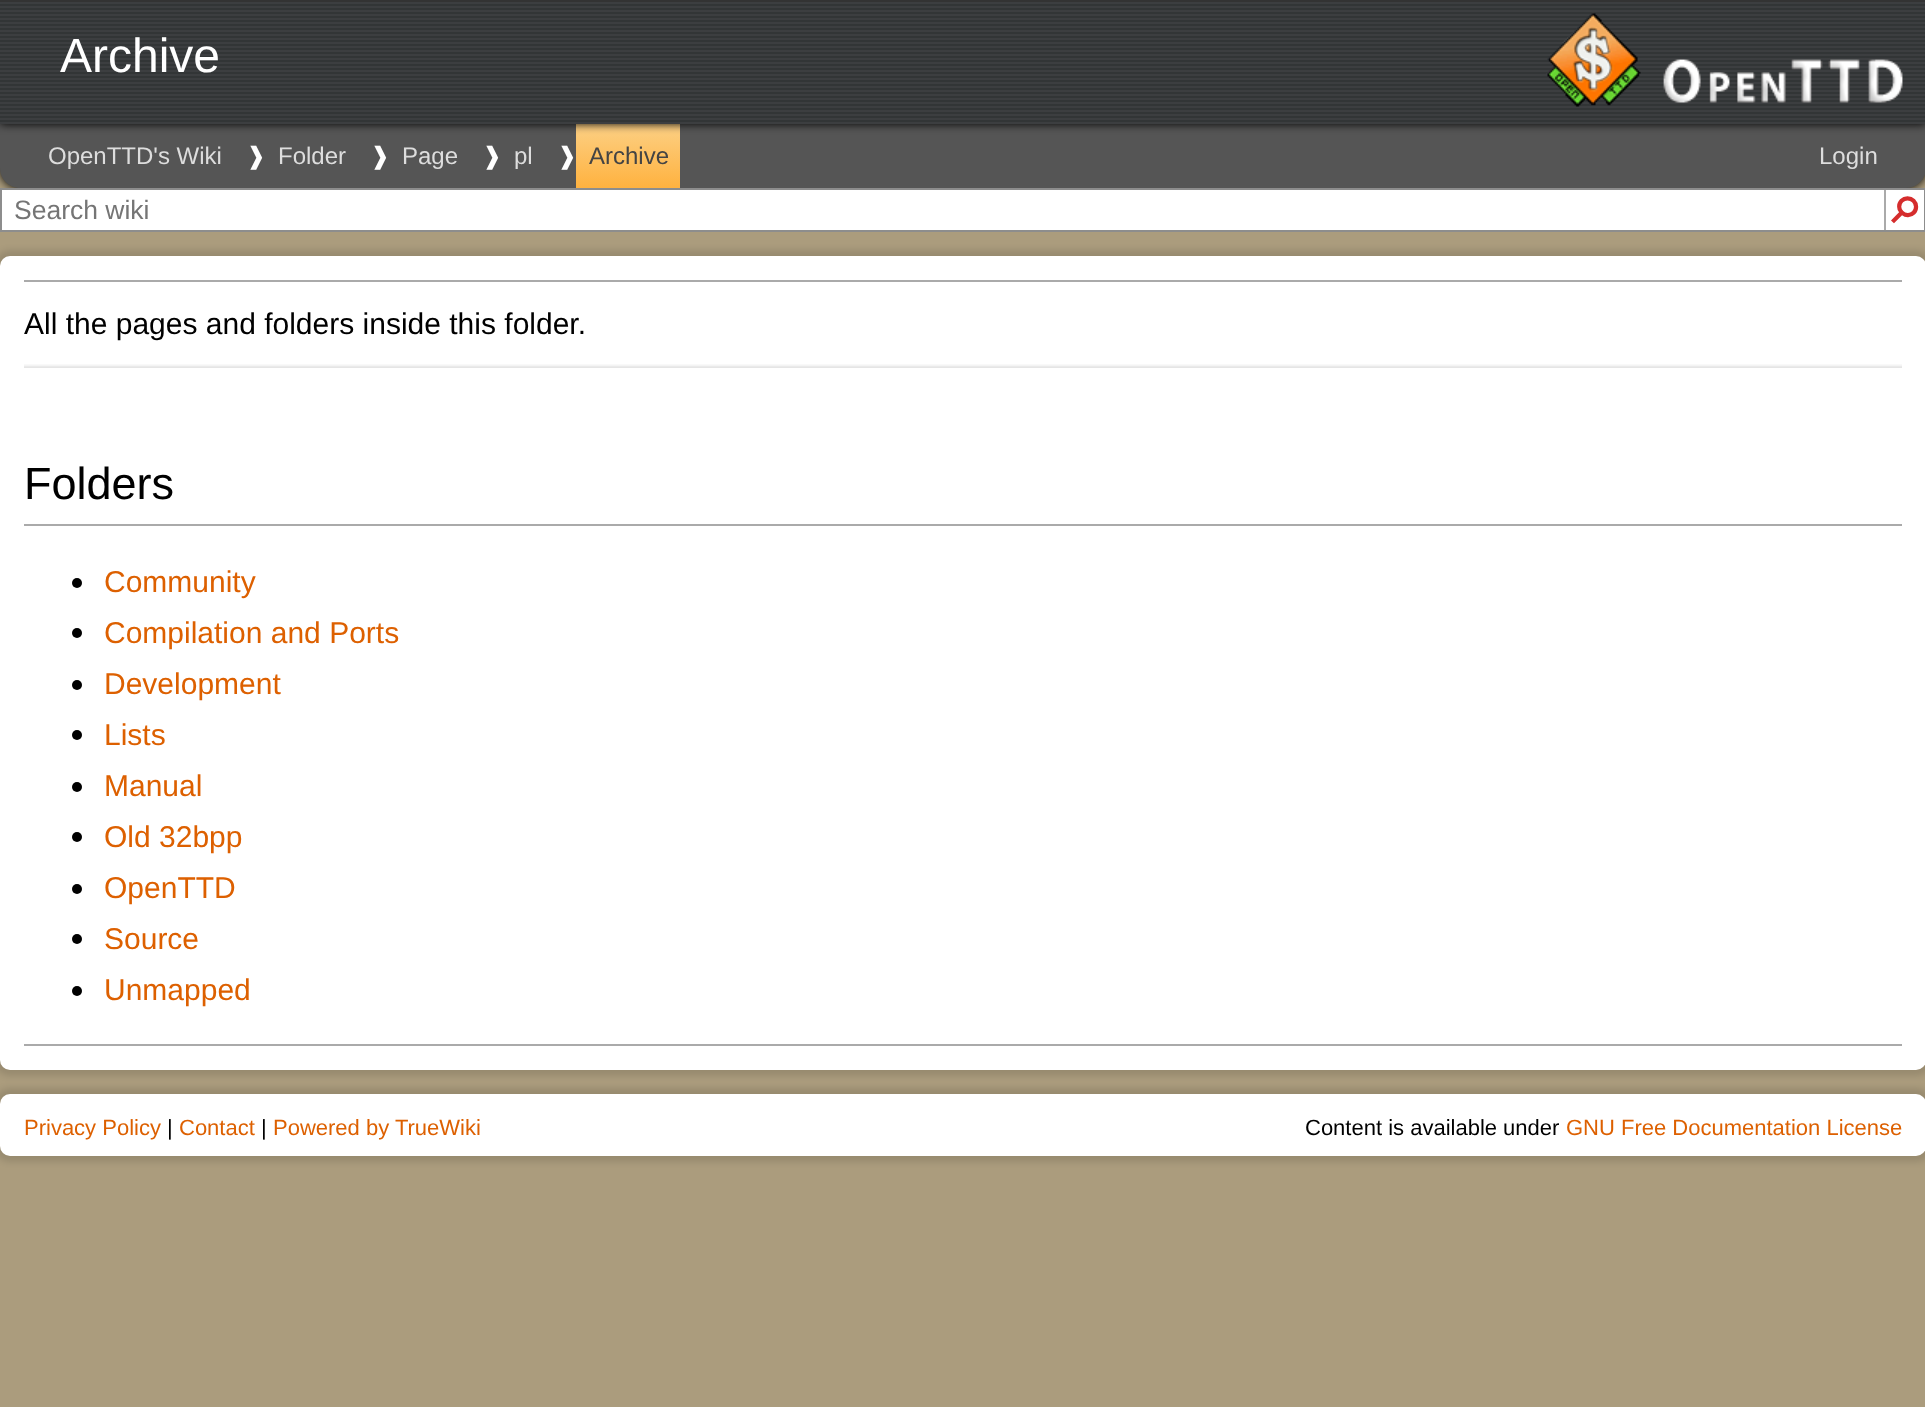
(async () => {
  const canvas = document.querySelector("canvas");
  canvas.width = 1925;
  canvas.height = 1407;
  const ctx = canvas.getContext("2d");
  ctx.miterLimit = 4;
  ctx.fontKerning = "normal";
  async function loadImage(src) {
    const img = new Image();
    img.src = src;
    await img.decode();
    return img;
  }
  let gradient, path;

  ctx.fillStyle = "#ab9c7d";
  ctx.fillRect(0, 0, 1925, 1407);
  ctx.fillStyle = "#000000";
  ctx.filter = "blur(5px)";
  ctx.beginPath();
  ctx.roundRect(0, 124, 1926, 64, 20);
  ctx.fill();
  ctx.filter = "none";
  ctx.fillStyle = "#555555";
  path = new Path2D("M0 124H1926V168C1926 179 1917 188 1906 188H20C9 188 0 179 0 168Z");
  ctx.fill(path);
  gradient = ctx.createLinearGradient(628, 124, 628, 188);
  gradient.addColorStop(0, "#fcd085");
  gradient.addColorStop(1, "#ffb23f");
  ctx.fillStyle = gradient;
  ctx.fillRect(576, 124, 104, 64);
  ctx.fillStyle = "#000000";
  ctx.filter = "blur(5px)";
  ctx.beginPath();
  ctx.rect(0, 0, 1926, 124);
  ctx.fill();
  ctx.filter = "none";
  ctx.fillStyle = "#333333";
  ctx.fillRect(0, 0, 1925, 2);
  ctx.drawImage(await loadImage("img/1.png"), 0, 2, 1925, 122);
  ctx.drawImage(await loadImage("img/2.png"), 1546, 12, 95, 95);
  ctx.drawImage(await loadImage("img/3.png"), 1663, 59, 240, 44);
  ctx.fillStyle = "#ffffff";
  ctx.beginPath();
  ctx.rect(1, 189, 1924, 42);
  ctx.fill();
  ctx.strokeStyle = "#8d8d8d";
  ctx.lineWidth = 2;
  ctx.stroke();
  ctx.fillStyle = "#aaaaaa";
  ctx.fillRect(1884, 190, 2, 40);
  ctx.fillStyle = "rgba(0, 0, 0, 0.11)";
  ctx.filter = "blur(3px)";
  ctx.beginPath();
  ctx.roundRect(-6, 250, 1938, 826, 16);
  ctx.fill();
  ctx.filter = "none";
  ctx.fillStyle = "#ffffff";
  ctx.beginPath();
  ctx.roundRect(0, 256, 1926, 814, 10);
  ctx.fill();
  ctx.fillStyle = "#aaaaaa";
  ctx.fillRect(24, 280, 1878, 2);
  ctx.drawImage(await loadImage("img/4.png"), 24, 364, 1878, 4);
  ctx.fillRect(24, 524, 1878, 2);
  ctx.fillStyle = "#000000";
  ctx.beginPath();
  ctx.arc(77, 583, 5, 0, Math.PI * 2);
  ctx.fill();
  ctx.beginPath();
  ctx.arc(77, 633, 5, 0, Math.PI * 2);
  ctx.fill();
  ctx.beginPath();
  ctx.arc(77, 685, 5, 0, Math.PI * 2);
  ctx.fill();
  ctx.beginPath();
  ctx.arc(77, 735, 5, 0, Math.PI * 2);
  ctx.fill();
  ctx.beginPath();
  ctx.arc(77, 787, 5, 0, Math.PI * 2);
  ctx.fill();
  ctx.beginPath();
  ctx.arc(77, 837, 5, 0, Math.PI * 2);
  ctx.fill();
  ctx.beginPath();
  ctx.arc(77, 889, 5, 0, Math.PI * 2);
  ctx.fill();
  ctx.beginPath();
  ctx.arc(77, 939, 5, 0, Math.PI * 2);
  ctx.fill();
  ctx.beginPath();
  ctx.arc(77, 991, 5, 0, Math.PI * 2);
  ctx.fill();
  ctx.fillStyle = "#aaaaaa";
  ctx.fillRect(24, 1044, 1878, 2);
  ctx.fillStyle = "rgba(0, 0, 0, 0.11)";
  ctx.filter = "blur(3px)";
  ctx.beginPath();
  ctx.roundRect(-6, 1088, 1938, 74, 16);
  ctx.fill();
  ctx.filter = "none";
  ctx.fillStyle = "#ffffff";
  ctx.beginPath();
  ctx.roundRect(0, 1094, 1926, 62, 10);
  ctx.fill();
  ctx.font = "48px Liberation Sans";
  ctx.fillText("Archive", 60, 72);
  ctx.font = "24px Liberation Sans";
  ctx.fillStyle = "#dddddd";
  ctx.fillText("OpenTTD's Wiki", 48, 164);
  ctx.font = "24px DejaVu Sans";
  ctx.fillStyle = "#ffffff";
  ctx.fillText("❱", 246, 164);
  ctx.font = "24px Liberation Sans";
  ctx.fillStyle = "#dddddd";
  ctx.fillText("Folder", 278, 164);
  ctx.font = "24px DejaVu Sans";
  ctx.fillStyle = "#ffffff";
  ctx.fillText("❱", 370, 164);
  ctx.font = "24px Liberation Sans";
  ctx.fillStyle = "#dddddd";
  ctx.fillText("Page", 402, 164);
  ctx.font = "24px DejaVu Sans";
  ctx.fillStyle = "#ffffff";
  ctx.fillText("❱", 482, 164);
  ctx.font = "24px Liberation Sans";
  ctx.fillStyle = "#dddddd";
  ctx.fillText("pl", 514, 164);
  ctx.font = "24px DejaVu Sans";
  ctx.fillStyle = "#ffffff";
  ctx.fillText("❱", 557, 164);
  ctx.font = "24px Liberation Sans";
  ctx.fillStyle = "#444444";
  ctx.fillText("Archive", 589, 164);
  ctx.fillStyle = "#dddddd";
  ctx.fillText("Login", 1819, 164);
  ctx.font = "26.5px Liberation Sans";
  ctx.fillStyle = "#757575";
  ctx.fillText("Search wiki", 14, 219);
  ctx.font = "bold 36px DejaVu Sans";
  ctx.fillStyle = "#d52d2d";
  ctx.save();
  ctx.translate(1886, 209);
  ctx.rotate(45 * Math.PI / 180);
  ctx.fillText("⚲", 0, 0);
  ctx.restore();
  ctx.font = "30px Liberation Sans";
  ctx.fillStyle = "#000000";
  ctx.fillText("All the pages and folders inside this folder.", 24, 334);
  ctx.font = "45px Liberation Sans";
  ctx.fillText("Folders", 24, 499);
  ctx.font = "30px Liberation Sans";
  ctx.fillStyle = "#dd6000";
  for (const [text, x, y] of [
    ["Community", 104, 592],
    ["Compilation and Ports", 104, 643],
    ["Development", 104, 694],
    ["Lists", 104, 745],
    ["Manual", 104, 796],
    ["Old 32bpp", 104, 847],
    ["OpenTTD", 104, 898],
    ["Source", 104, 949],
    ["Unmapped", 104, 1000],
  ]) {
    ctx.fillText(text, x, y);
  }
  ctx.font = "22px Liberation Sans";
  ctx.fillText("Privacy Policy", 24, 1135);
  ctx.fillStyle = "#000000";
  ctx.fillText("|", 167, 1135);
  ctx.fillStyle = "#dd6000";
  ctx.fillText("Contact", 179, 1135);
  ctx.fillStyle = "#000000";
  ctx.fillText("|", 261, 1135);
  ctx.fillStyle = "#dd6000";
  ctx.fillText("Powered by TrueWiki", 273, 1135);
  ctx.fillStyle = "#000000";
  ctx.fillText("Content is available under", 1305, 1135);
  ctx.fillStyle = "#dd6000";
  ctx.fillText("GNU Free Documentation License", 1566, 1135);
})();
